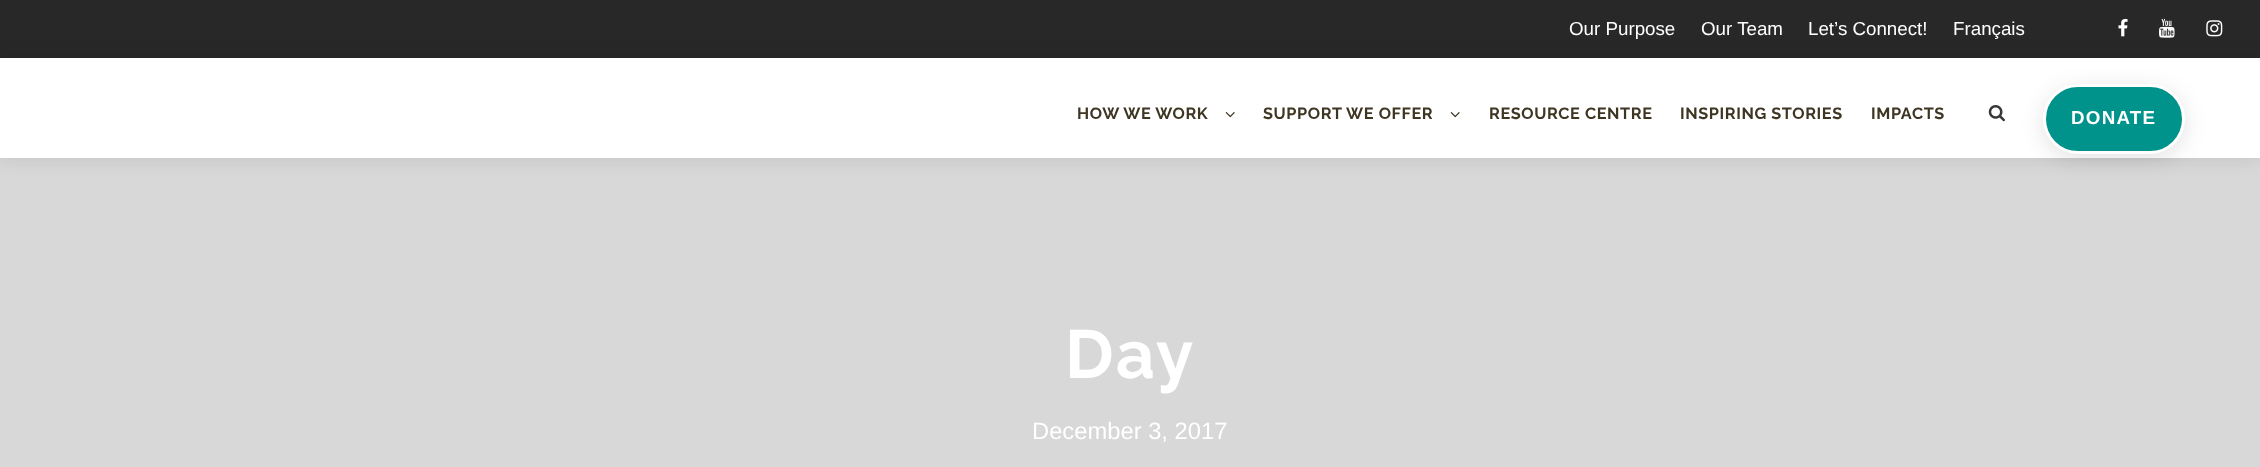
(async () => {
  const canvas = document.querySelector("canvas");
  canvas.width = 2260;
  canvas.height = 467;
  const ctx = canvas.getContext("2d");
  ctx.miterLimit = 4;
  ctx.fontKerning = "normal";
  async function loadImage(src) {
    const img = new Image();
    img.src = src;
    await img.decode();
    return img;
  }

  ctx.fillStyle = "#282828";
  ctx.fillRect(0, 0, 2260, 467);
  ctx.drawImage(await loadImage("img/1.png"), 2118, 18, 10, 19);
  ctx.drawImage(await loadImage("img/2.png"), 2159, 18, 16, 20);
  ctx.drawImage(await loadImage("img/3.png"), 2206, 20, 17, 17);
  ctx.fillStyle = "#d8d8d8";
  ctx.fillRect(0, 158, 2260, 309);
  ctx.fillStyle = "rgba(0, 0, 0, 0.1)";
  ctx.filter = "blur(9.5px)";
  ctx.beginPath();
  ctx.rect(0, 58, 2260, 100);
  ctx.fill();
  ctx.filter = "none";
  ctx.fillStyle = "#ffffff";
  ctx.fillRect(0, 58, 2260, 100);
  ctx.drawImage(await loadImage("img/4.png"), 1225, 112, 10, 6);
  ctx.drawImage(await loadImage("img/4.png"), 1450, 112, 10, 6);
  ctx.drawImage(await loadImage("img/5.png"), 1988, 105, 17, 17);
  ctx.fillStyle = "rgba(0, 0, 0, 0.11)";
  ctx.filter = "blur(11px)";
  ctx.beginPath();
  ctx.roundRect(2043, 89, 142, 70, 35);
  ctx.fill();
  ctx.filter = "none";
  ctx.fillStyle = "#00938b";
  ctx.beginPath();
  ctx.roundRect(2044.5, 85.5, 139, 67, 33.5);
  ctx.fill();
  ctx.strokeStyle = "#ffffff";
  ctx.lineWidth = 3;
  ctx.stroke();
  ctx.font = "18.75px Liberation Sans";
  ctx.fillStyle = "#ffffff";
  for (const [text, x, y] of [
    ["Our Purpose", 1569, 35],
    ["Our Team", 1701, 35],
    ["Let’s Connect!", 1808, 35],
    ["Français", 1953, 35],
  ]) {
    ctx.fillText(text, x, y);
  }
  ctx.letterSpacing = "0.6px";
  ctx.font = "bold 16.25px Raleway";
  ctx.fillStyle = "#3e3522";
  for (const [text, x, y] of [
    ["HOW WE WORK", 1077, 119],
    ["SUPPORT WE OFFER", 1263, 119],
    ["RESOURCE CENTRE", 1489, 119],
    ["INSPIRING STORIES", 1680, 119],
    ["IMPACTS", 1871, 119],
  ]) {
    ctx.fillText(text, x, y);
  }
  ctx.letterSpacing = "1.25px";
  ctx.font = "bold 18.75px Liberation Sans";
  ctx.fillStyle = "#ffffff";
  ctx.fillText("DONATE", 2071, 124);
  ctx.letterSpacing = "2.5px";
  ctx.font = "bold 68px Raleway";
  ctx.fillText("Day", 1065, 378);
  ctx.letterSpacing = "0px";
  ctx.font = "23.75px Liberation Sans";
  ctx.fillText("December 3, 2017", 1032, 439);
})();
